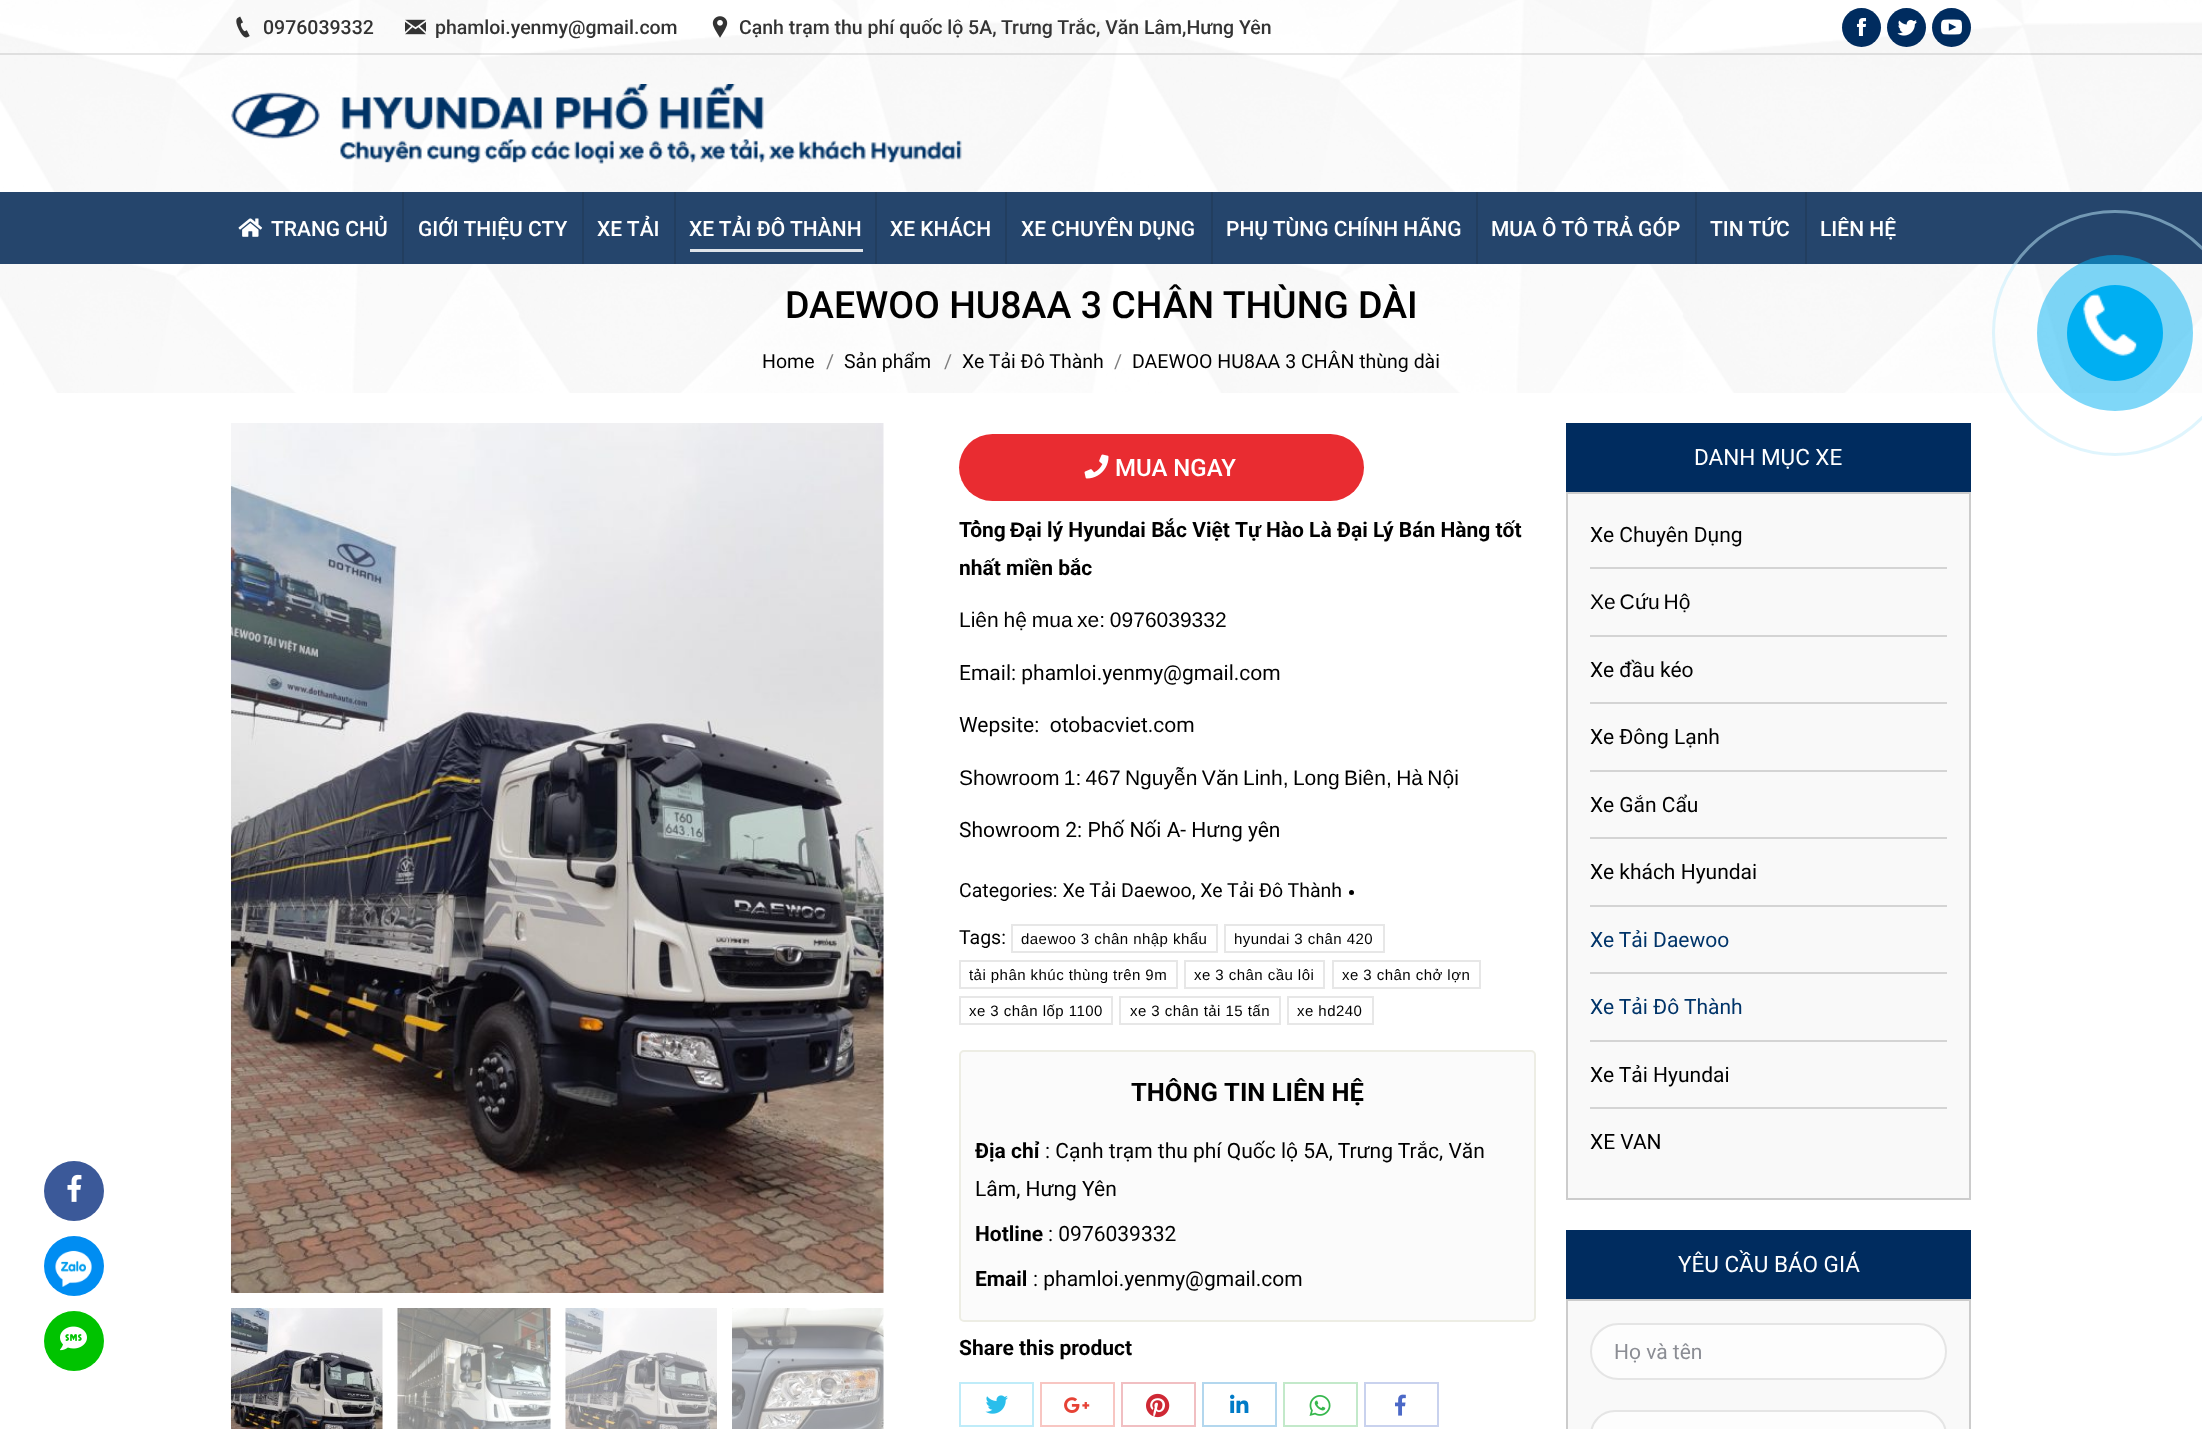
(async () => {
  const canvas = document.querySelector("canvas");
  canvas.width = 2202;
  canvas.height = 1429;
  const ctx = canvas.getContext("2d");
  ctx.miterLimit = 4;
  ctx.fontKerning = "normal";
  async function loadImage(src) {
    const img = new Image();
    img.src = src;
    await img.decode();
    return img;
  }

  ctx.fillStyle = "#ffffff";
  ctx.fillRect(0, 0, 2202, 1429);
  ctx.drawImage(await loadImage("img/1.png"), 0, 0, 2202, 192);
  ctx.drawImage(await loadImage("img/2.png"), 236, 16, 14, 22);
  ctx.drawImage(await loadImage("img/3.png"), 405, 19, 21, 16);
  ctx.drawImage(await loadImage("img/4.png"), 712, 16, 16, 22);
  ctx.fillStyle = "#002c5f";
  ctx.beginPath();
  ctx.arc(1861.5, 27.5, 19.5, 0, Math.PI * 2);
  ctx.fill();
  ctx.drawImage(await loadImage("img/5.png"), 1856, 18, 11, 18);
  ctx.beginPath();
  ctx.arc(1906.5, 27.5, 19.5, 0, Math.PI * 2);
  ctx.fill();
  ctx.drawImage(await loadImage("img/6.png"), 1897, 19, 20, 17);
  ctx.beginPath();
  ctx.arc(1951.5, 27.5, 19.5, 0, Math.PI * 2);
  ctx.fill();
  ctx.drawImage(await loadImage("img/7.png"), 1941, 19, 21, 16);
  ctx.fillStyle = "rgba(51, 51, 51, 0.12)";
  ctx.fillRect(0, 53, 2202, 2);
  ctx.drawImage(await loadImage("img/8.png"), 231, 84, 731, 80);
  ctx.fillStyle = "#25456c";
  ctx.fillRect(0, 192, 2202, 72);
  ctx.drawImage(await loadImage("img/9.png"), 238, 218, 25, 19);
  for (const [x, y, w, h, color] of [
    [402, 192, 2, 72, "#223e5f"],
    [582, 192, 2, 72, "#223e5f"],
    [674, 192, 2, 72, "#223e5f"],
    [690, 249, 173, 3, "#dee3e9"],
    [875, 192, 2, 72, "#223e5f"],
    [1005, 192, 2, 72, "#223e5f"],
    [1211, 192, 2, 72, "#223e5f"],
    [1476, 192, 2, 72, "#223e5f"],
    [1695, 192, 2, 72, "#223e5f"],
    [1805, 192, 2, 72, "#223e5f"],
  ]) {
    ctx.fillStyle = color;
    ctx.fillRect(x, y, w, h);
  }
  ctx.drawImage(await loadImage("img/10.png"), 0, 264, 2202, 129);
  ctx.drawImage(await loadImage("img/11.png"), 231, 423, 653, 870);
  ctx.drawImage(await loadImage("img/12.png"), 231, 1308, 152, 121);
  ctx.drawImage(await loadImage("img/13.png"), 397, 1308, 154, 121);
  ctx.drawImage(await loadImage("img/14.png"), 565, 1308, 152, 121);
  ctx.drawImage(await loadImage("img/15.png"), 732, 1308, 152, 121);
  ctx.fillStyle = "#e92c31";
  ctx.beginPath();
  ctx.roundRect(959, 434, 405, 67, 33.5);
  ctx.fill();
  ctx.drawImage(await loadImage("img/16.png"), 1084, 454, 25, 25);
  ctx.fillStyle = "#000000";
  ctx.beginPath();
  ctx.arc(1351.5, 892.5, 2.5, 0, Math.PI * 2);
  ctx.fill();
  ctx.strokeStyle = "#e7e7e7";
  ctx.lineWidth = 2;
  ctx.strokeRect(1012, 925, 205, 27);
  ctx.strokeRect(1225, 925, 159, 27);
  ctx.strokeRect(960, 961, 217, 27);
  ctx.strokeRect(1185, 961, 139, 27);
  ctx.strokeRect(1333, 961, 147, 27);
  ctx.strokeRect(960, 997, 152, 27);
  ctx.strokeRect(1120, 997, 160, 27);
  ctx.strokeRect(1288, 997, 85, 27);
  ctx.fillStyle = "#fbfbfb";
  ctx.beginPath();
  ctx.roundRect(960, 1051, 575, 270, 4);
  ctx.fill();
  ctx.strokeStyle = "#edede4";
  ctx.stroke();
  ctx.strokeStyle = "#bfecf9";
  ctx.strokeRect(960, 1383, 73, 43);
  ctx.drawImage(await loadImage("img/17.png"), 985, 1395, 23, 19);
  ctx.strokeStyle = "#f8c6c2";
  ctx.strokeRect(1041, 1383, 73, 43);
  ctx.drawImage(await loadImage("img/18.png"), 1064, 1397, 26, 16);
  ctx.strokeStyle = "#f1bfc2";
  ctx.strokeRect(1122, 1383, 73, 43);
  ctx.drawImage(await loadImage("img/19.png"), 1146, 1393, 24, 25);
  ctx.strokeStyle = "#b3d7ee";
  ctx.strokeRect(1203, 1383, 73, 43);
  ctx.drawImage(await loadImage("img/20.png"), 1230, 1394, 19, 19);
  ctx.strokeStyle = "#c3e9ca";
  ctx.strokeRect(1284, 1383, 73, 43);
  ctx.drawImage(await loadImage("img/21.png"), 1309, 1395, 22, 21);
  ctx.strokeStyle = "#c9d2ee";
  ctx.strokeRect(1365, 1383, 73, 43);
  ctx.drawImage(await loadImage("img/22.png"), 1395, 1394, 11, 22);
  ctx.fillStyle = "#002c5f";
  ctx.fillRect(1566, 423, 405, 69);
  ctx.fillStyle = "#f9f9f9";
  ctx.beginPath();
  ctx.rect(1567, 493, 403, 706);
  ctx.fill();
  ctx.strokeStyle = "#cccccc";
  ctx.stroke();
  for (const [x, y, w, h, color] of [
    [1590, 567, 357, 2, "#d4d4d4"],
    [1590, 635, 357, 2, "#d4d4d4"],
    [1590, 702, 357, 2, "#d4d4d4"],
    [1590, 770, 357, 2, "#d4d4d4"],
    [1590, 837, 357, 2, "#d4d4d4"],
    [1590, 905, 357, 2, "#d4d4d4"],
    [1590, 972, 357, 2, "#d4d4d4"],
    [1590, 1040, 357, 2, "#d4d4d4"],
    [1590, 1107, 357, 2, "#d4d4d4"],
    [1566, 1230, 405, 69, "#002c5f"],
  ]) {
    ctx.fillStyle = color;
    ctx.fillRect(x, y, w, h);
  }
  ctx.fillStyle = "#f9f9f9";
  ctx.beginPath();
  ctx.rect(1567, 1300, 403, 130);
  ctx.fill();
  ctx.stroke();
  ctx.fillStyle = "#fdfdfd";
  ctx.beginPath();
  ctx.roundRect(1591, 1324, 355, 55, 27.5);
  ctx.fill();
  ctx.strokeStyle = "#e5e5e5";
  ctx.stroke();
  ctx.beginPath();
  ctx.roundRect(1591, 1411, 355, 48, 27.5);
  ctx.fill();
  ctx.stroke();
  ctx.beginPath();
  ctx.arc(2115, 333, 121.5, 0, Math.PI * 2);
  ctx.strokeStyle = "rgba(191, 235, 252, 0.5)";
  ctx.lineWidth = 3;
  ctx.stroke();
  ctx.fillStyle = "rgba(0, 175, 242, 0.5)";
  ctx.beginPath();
  ctx.arc(2115, 333, 78, 0, Math.PI * 2);
  ctx.fill();
  ctx.fillStyle = "#00aff2";
  ctx.beginPath();
  ctx.arc(2115, 333, 48, 0, Math.PI * 2);
  ctx.fill();
  ctx.drawImage(await loadImage("img/23.png"), 2083, 293, 54, 63);
  ctx.fillStyle = "#3b5999";
  ctx.beginPath();
  ctx.arc(74, 1191, 30, 0, Math.PI * 2);
  ctx.fill();
  ctx.drawImage(await loadImage("img/24.png"), 67, 1174, 15, 28);
  ctx.fillStyle = "#008df2";
  ctx.beginPath();
  ctx.arc(74, 1266, 30, 0, Math.PI * 2);
  ctx.fill();
  ctx.drawImage(await loadImage("img/25.png"), 55, 1250, 37, 37);
  ctx.fillStyle = "#00c300";
  ctx.beginPath();
  ctx.arc(74, 1341, 30, 0, Math.PI * 2);
  ctx.fill();
  ctx.drawImage(await loadImage("img/26.png"), 60, 1326, 27, 25);
  ctx.font = "500 19.5px Roboto";
  ctx.fillStyle = "#333333";
  for (const [text, x, y] of [
    ["0976039332", 263, 34],
    ["phamloi.yenmy@gmail.com", 435, 34],
    ["Cạnh trạm thu phí quốc lộ 5A, Trưng Trắc, Văn Lâm,Hưng Yên", 739, 34],
  ]) {
    ctx.fillText(text, x, y);
  }
  ctx.font = "500 21px Roboto";
  ctx.fillStyle = "#ffffff";
  for (const [text, x, y] of [
    ["TRANG CHỦ", 271, 236],
    ["GIỚI THIỆU CTY", 418, 236],
    ["XE TẢI", 597, 236],
    ["XE TẢI ĐÔ THÀNH", 689, 236],
    ["XE KHÁCH", 890, 236],
    ["XE CHUYÊN DỤNG", 1021, 236],
    ["PHỤ TÙNG CHÍNH HÃNG", 1226, 236],
    ["MUA Ô TÔ TRẢ GÓP", 1491, 236],
    ["TIN TỨC", 1710, 236],
    ["LIÊN HỆ", 1820, 236],
  ]) {
    ctx.fillText(text, x, y);
  }
  ctx.font = "500 37.5px Roboto";
  ctx.fillStyle = "#000000";
  ctx.fillText("DAEWOO HU8AA 3 CHÂN THÙNG DÀI", 785, 318);
  ctx.font = "19.5px Roboto";
  ctx.fillText("Home", 762, 368);
  ctx.fillStyle = "#7e7e7e";
  ctx.fillText("/", 826, 368);
  ctx.fillStyle = "#000000";
  ctx.fillText("Sản phẩm", 844, 368);
  ctx.fillStyle = "#7e7e7e";
  ctx.fillText("/", 944, 368);
  ctx.fillStyle = "#000000";
  ctx.fillText("Xe Tải Đô Thành", 962, 368);
  ctx.fillStyle = "#7e7e7e";
  ctx.fillText("/", 1114, 368);
  ctx.fillStyle = "#000000";
  ctx.fillText("DAEWOO HU8AA 3 CHÂN thùng dài", 1132, 368);
  ctx.font = "500 24px Roboto";
  ctx.fillStyle = "#ffffff";
  ctx.fillText("MUA NGAY", 1115, 476);
  ctx.font = "bold 21px Roboto";
  ctx.fillStyle = "#000000";
  ctx.fillText("Tổng", 959, 537);
  ctx.font = "bold 21px Liberation Sans";
  ctx.fillText("Đ", 1010, 537);
  ctx.font = "bold 21px Roboto";
  ctx.fillText("ại lý Hyundai B", 1025, 537);
  ctx.font = "bold 21px Liberation Sans";
  ctx.fillText("ắ", 1164, 537);
  ctx.font = "bold 21px Roboto";
  for (const [text, x, y] of [
    ["c Việt", 1176, 537],
    ["Tự Hào Là Đại Lý Bán Hàng tốt", 1235, 537],
    ["nhất miền bắc", 959, 575],
  ]) {
    ctx.fillText(text, x, y);
  }
  ctx.wordSpacing = "-1px";
  ctx.font = "21px Liberation Sans";
  ctx.fillText("Liên hệ mua", 959, 627);
  ctx.fillText("xe: 0976039332", 1077, 627);
  ctx.wordSpacing = "0px";
  ctx.font = "21px Roboto";
  ctx.fillText("Email: phamloi.yenmy@gmail.com", 959, 680);
  ctx.fillText("Wepsite:  otobacviet.com", 959, 732);
  ctx.wordSpacing = "-1.5px";
  ctx.font = "21px Liberation Sans";
  ctx.fillText("Showroom 1: 467 Nguyễn V", 959, 785);
  ctx.wordSpacing = "0px";
  ctx.font = "21px Roboto";
  ctx.fillText("ă", 1216, 785);
  ctx.wordSpacing = "-1.5px";
  ctx.font = "21px Liberation Sans";
  ctx.fillText("n Linh, Long Biên, Hà Nội", 1227, 785);
  ctx.wordSpacing = "0px";
  ctx.font = "21px Roboto";
  ctx.fillText("Showroom 2: Phố Nối A- Hưng yên", 959, 837);
  ctx.font = "19.5px Roboto";
  ctx.fillText("Categories: Xe Tải Daewoo, Xe Tải Đô Thành", 959, 897);
  ctx.fillText("Tags:", 959, 944);
  ctx.letterSpacing = "0.45px";
  ctx.font = "15px Liberation Sans";
  for (const [text, x, y] of [
    ["daewoo 3 chân nhập khẩu", 1021, 944],
    ["hyundai 3 chân 420", 1234, 944],
    ["tải phân khúc thùng trên 9m", 969, 980],
    ["xe 3 chân cầu lôi", 1194, 980],
    ["xe 3 chân chở lợn", 1342, 980],
    ["xe 3 chân lốp 1100", 969, 1016],
    ["xe 3 chân tải 15 tấn", 1130, 1016],
    ["xe hd240", 1297, 1016],
  ]) {
    ctx.fillText(text, x, y);
  }
  ctx.letterSpacing = "0px";
  ctx.font = "bold 25.5px Roboto";
  ctx.fillText("THÔNG TIN LIÊN HỆ", 1131, 1101);
  ctx.font = "bold 21px Roboto";
  ctx.fillText("Địa chỉ", 975, 1158);
  ctx.font = "21px Roboto";
  ctx.fillText(": Cạnh trạm thu phí Quốc lộ 5A, Trưng Trắc, Văn", 1045, 1158);
  ctx.fillText("Lâm, Hưng Yên", 975, 1196);
  ctx.font = "bold 21px Roboto";
  ctx.fillText("Hotline", 975, 1241);
  ctx.font = "21px Roboto";
  ctx.fillText(": 0976039332", 1048, 1241);
  ctx.font = "bold 21px Roboto";
  ctx.fillText("Email", 975, 1286);
  ctx.font = "21px Roboto";
  ctx.fillText(": phamloi.yenmy@gmail.com", 1033, 1286);
  ctx.font = "bold 21px Roboto";
  ctx.fillText("Share this product", 959, 1355);
  ctx.font = "22.5px Roboto";
  ctx.fillStyle = "#ffffff";
  ctx.fillText("DANH MỤC XE", 1694, 465);
  ctx.font = "21px Roboto";
  ctx.fillStyle = "#000000";
  ctx.fillText("Xe Chuyên Dụng", 1590, 542);
  ctx.wordSpacing = "-2px";
  ctx.font = "21px Liberation Sans";
  ctx.fillText("Xe C", 1590, 609);
  ctx.wordSpacing = "0px";
  ctx.font = "21px Roboto";
  ctx.fillText("ứ", 1635, 609);
  ctx.wordSpacing = "-2px";
  ctx.font = "21px Liberation Sans";
  ctx.fillText("u Hộ", 1648, 609);
  ctx.wordSpacing = "0px";
  ctx.font = "21px Roboto";
  for (const [text, x, y] of [
    ["Xe đầu kéo", 1590, 677],
    ["Xe Đông Lạnh", 1590, 744],
    ["Xe Gắn Cẩu", 1590, 812],
    ["Xe khách Hyundai", 1590, 879],
  ]) {
    ctx.fillText(text, x, y);
  }
  ctx.fillStyle = "#003469";
  ctx.fillText("Xe Tải Daewoo", 1590, 947);
  ctx.fillText("Xe Tải Đô Thành", 1590, 1014);
  ctx.fillStyle = "#000000";
  ctx.fillText("Xe Tải Hyundai", 1590, 1082);
  ctx.fillText("XE VAN", 1590, 1149);
  ctx.font = "22.5px Roboto";
  ctx.fillStyle = "#ffffff";
  ctx.fillText("YÊU CẦU BÁO GIÁ", 1678, 1272);
  ctx.font = "21px Roboto";
  ctx.fillStyle = "#8b8d94";
  ctx.fillText("Họ và tên", 1614, 1359);
})();
